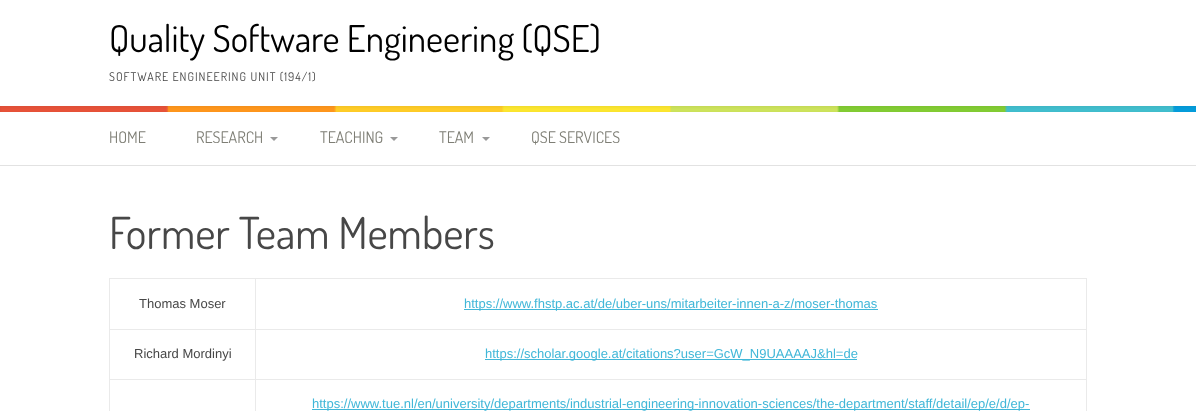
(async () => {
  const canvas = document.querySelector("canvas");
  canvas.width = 1196;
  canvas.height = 411;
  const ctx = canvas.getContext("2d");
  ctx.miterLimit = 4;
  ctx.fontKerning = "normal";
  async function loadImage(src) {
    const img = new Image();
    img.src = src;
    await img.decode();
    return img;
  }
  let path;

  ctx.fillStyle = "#ffffff";
  ctx.fillRect(0, 0, 1196, 411);
  ctx.drawImage(await loadImage("img/1.png"), 0, 106, 1196, 6);
  ctx.fillStyle = "#e2e2e2";
  ctx.fillRect(0, 165, 1196, 1);
  ctx.fillStyle = "#999999";
  path = new Path2D("M270 137H278L274 141Z");
  ctx.fill(path);
  path = new Path2D("M390 137H398L394 141Z");
  ctx.fill(path);
  path = new Path2D("M482 137H490L486 141Z");
  ctx.fill(path);
  for (const [x, y, w, h, color] of [
    [109, 278, 978, 1, "#eaeaea"],
    [1086, 278, 1, 133, "#eaeaea"],
    [109, 278, 1, 133, "#eaeaea"],
    [255, 329, 832, 1, "#eaeaea"],
    [255, 379, 832, 1, "#eaeaea"],
    [255, 379, 1, 32, "#eaeaea"],
    [109, 379, 147, 1, "#eaeaea"],
    [255, 329, 1, 51, "#eaeaea"],
    [109, 329, 147, 1, "#eaeaea"],
    [255, 278, 1, 52, "#eaeaea"],
    [464, 309, 414, 1, "#41b7d8"],
    [485, 359, 372, 1, "#41b7d8"],
    [312, 409, 718, 1, "#41b7d8"],
  ]) {
    ctx.fillStyle = color;
    ctx.fillRect(x, y, w, h);
  }
  ctx.font = "37px Dosis";
  ctx.fillStyle = "#000000";
  ctx.fillText("Quality Software Engineering (QSE)", 109, 52);
  ctx.letterSpacing = "1px";
  ctx.font = "12px Dosis";
  ctx.fillStyle = "#474747";
  ctx.fillText("SOFTWARE ENGINEERING UNIT (194/1)", 109, 81);
  ctx.letterSpacing = "0px";
  ctx.font = "16px Dosis";
  ctx.fillStyle = "#7e7e75";
  for (const [text, x, y] of [
    ["HOME", 109, 143],
    ["RESEARCH", 196, 143],
    ["TEACHING", 320, 143],
    ["TEAM", 439, 143],
    ["QSE SERVICES", 531, 143],
  ]) {
    ctx.fillText(text, x, y);
  }
  ctx.font = "44px Dosis";
  ctx.fillStyle = "#474747";
  ctx.fillText("Former Team Members", 109, 249);
  ctx.font = "13px Liberation Sans";
  ctx.fillText("Thomas Moser", 139, 308);
  ctx.fillStyle = "#41b7d8";
  ctx.fillText("https://www.fhstp.ac.at/de/uber-uns/mitarbeiter-innen-a-z/moser-thomas", 464, 308);
  ctx.fillStyle = "#474747";
  ctx.fillText("Richard Mordinyi", 134, 358);
  ctx.fillStyle = "#41b7d8";
  ctx.fillText("https://scholar.google.at/citations?user=GcW_N9UAAAAJ&hl=de", 485, 358);
  ctx.fillText("https://www.tue.nl/en/university/departments/industrial-engineering-innovation-sciences/the-department/staff/detail/ep/e/d/ep-", 312, 408);
})();
